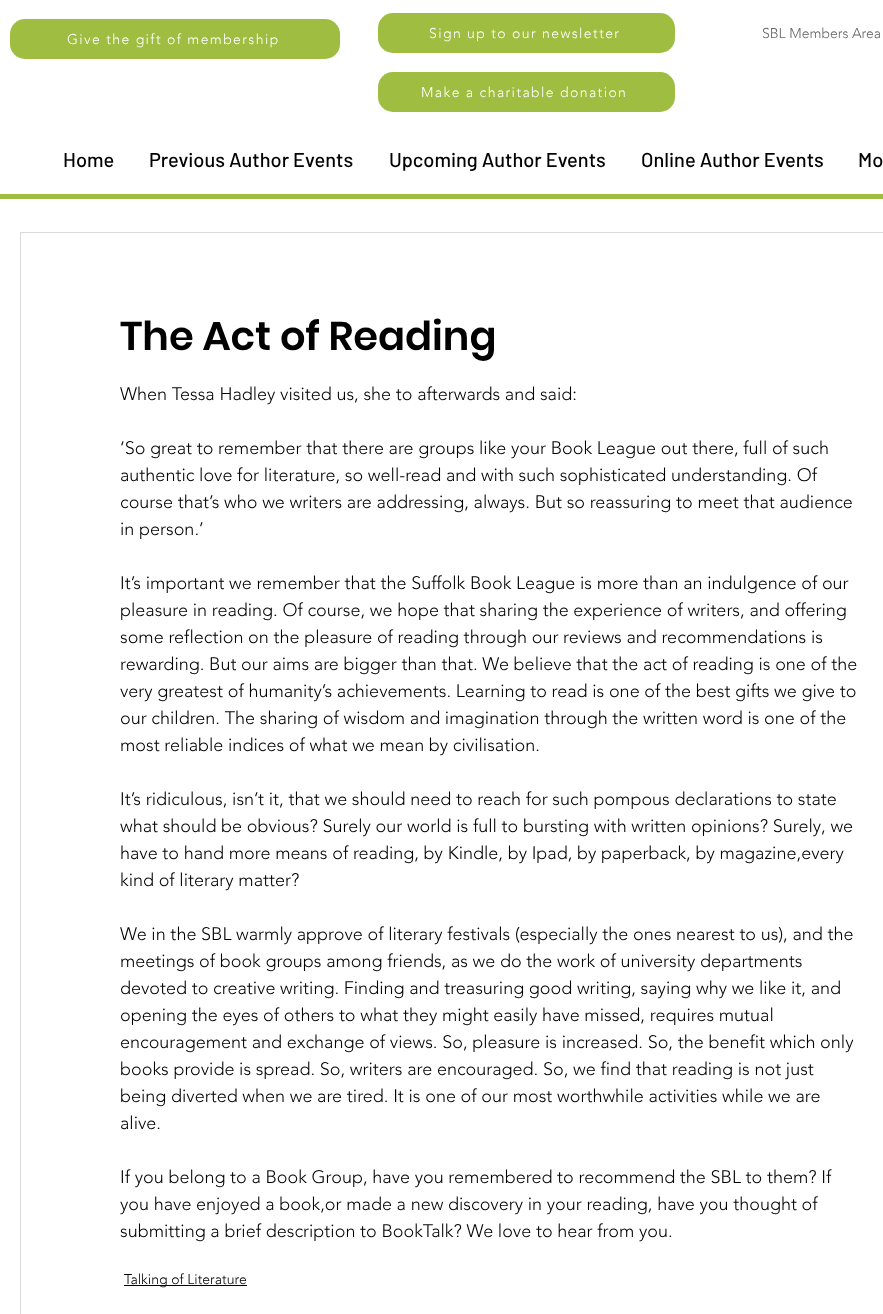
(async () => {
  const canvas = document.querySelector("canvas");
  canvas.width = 883;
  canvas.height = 1314;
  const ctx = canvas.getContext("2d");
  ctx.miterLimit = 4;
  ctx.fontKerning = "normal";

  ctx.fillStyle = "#ffffff";
  ctx.fillRect(0, 0, 883, 1314);
  ctx.fillStyle = "#9fbd40";
  ctx.beginPath();
  ctx.roundRect(10, 19, 330, 40, 15);
  ctx.fill();
  ctx.beginPath();
  ctx.roundRect(378, 13, 297, 40, 15);
  ctx.fill();
  ctx.beginPath();
  ctx.roundRect(378, 72, 297, 40, 15);
  ctx.fill();
  ctx.fillRect(0, 194, 883, 5);
  ctx.strokeStyle = "#d9d9d9";
  ctx.strokeRect(20.5, 232.5, 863, 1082);
  ctx.fillStyle = "#000000";
  ctx.fillRect(124, 1285, 123, 1);
  ctx.letterSpacing = "1.4px";
  ctx.font = "300 14px 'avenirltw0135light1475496'";
  ctx.fillStyle = "#ffffff";
  ctx.fillText("Give the gift of membership", 67, 44);
  ctx.fillText("Sign up to our newsletter", 429, 38);
  ctx.letterSpacing = "0px";
  ctx.fillStyle = "#666666";
  ctx.fillText("SBL Members Area", 762, 38);
  ctx.letterSpacing = "1.4px";
  ctx.fillStyle = "#ffffff";
  ctx.fillText("Make a charitable donation", 421, 97);
  ctx.letterSpacing = "0px";
  ctx.font = "500 20px Barlow";
  ctx.fillStyle = "#000000";
  for (const [text, x, y] of [
    ["Home", 63, 167],
    ["Previous Author Events", 149, 167],
    ["Upcoming Author Events", 389, 167],
    ["Online Author Events", 641, 167],
    ["Mo", 858, 167],
  ]) {
    ctx.fillText(text, x, y);
  }
  ctx.font = "600 40px Poppins";
  ctx.fillText("The Act of Reading", 120, 350);
  ctx.font = "300 18px 'avenirltw0135light1475496'";
  for (const [text, x, y] of [
    ["When Tessa Hadley visited us, she to afterwards and said:", 120, 400],
    ["‘So great to remember that there are groups like your Book League out there, full of such", 120, 454],
    ["authentic love for literature, so well-read and with such sophisticated understanding. Of", 120, 481],
    ["course that’s who we writers are addressing, always. But so reassuring to meet that audience", 120, 508],
    ["in person.’", 120, 535],
    ["It’s important we remember that the Suffolk Book League is more than an indulgence of our", 120, 589],
    ["pleasure in reading. Of course, we hope that sharing the experience of writers, and offering", 120, 616],
    ["some reflection on the pleasure of reading through our reviews and recommendations is", 120, 643],
    ["rewarding. But our aims are bigger than that. We believe that the act of reading is one of the", 120, 670],
    ["very greatest of humanity’s achievements. Learning to read is one of the best gifts we give to", 120, 697],
    ["our children. The sharing of wisdom and imagination through the written word is one of the", 120, 724],
    ["most reliable indices of what we mean by civilisation.", 120, 751],
    ["It’s ridiculous, isn’t it, that we should need to reach for such pompous declarations to state", 120, 805],
    ["what should be obvious? Surely our world is full to bursting with written opinions? Surely, we", 120, 832],
    ["have to hand more means of reading, by Kindle, by Ipad, by paperback, by magazine,every", 120, 859],
    ["kind of literary matter?", 120, 886],
    ["We in the SBL warmly approve of literary festivals (especially the ones nearest to us), and the", 120, 940],
    ["meetings of book groups among friends, as we do the work of university departments", 120, 967],
    ["devoted to creative writing. Finding and treasuring good writing, saying why we like it, and", 120, 994],
    ["opening the eyes of others to what they might easily have missed, requires mutual", 120, 1021],
    ["encouragement and exchange of views. So, pleasure is increased. So, the benefit which only", 120, 1048],
    ["books provide is spread. So, writers are encouraged. So, we find that reading is not just", 120, 1075],
    ["being diverted when we are tired. It is one of our most worthwhile activities while we are", 120, 1102],
    ["alive.", 120, 1129],
    ["If you belong to a Book Group, have you remembered to recommend the SBL to them? If", 120, 1183],
    ["you have enjoyed a book,or made a new discovery in your reading, have you thought of", 120, 1210],
    ["submitting a brief description to BookTalk? We love to hear from you.", 120, 1237],
  ]) {
    ctx.fillText(text, x, y);
  }
  ctx.font = "300 14px 'avenirltw0135light1475496'";
  ctx.fillText("Talking of Literature", 124, 1284);
})();
